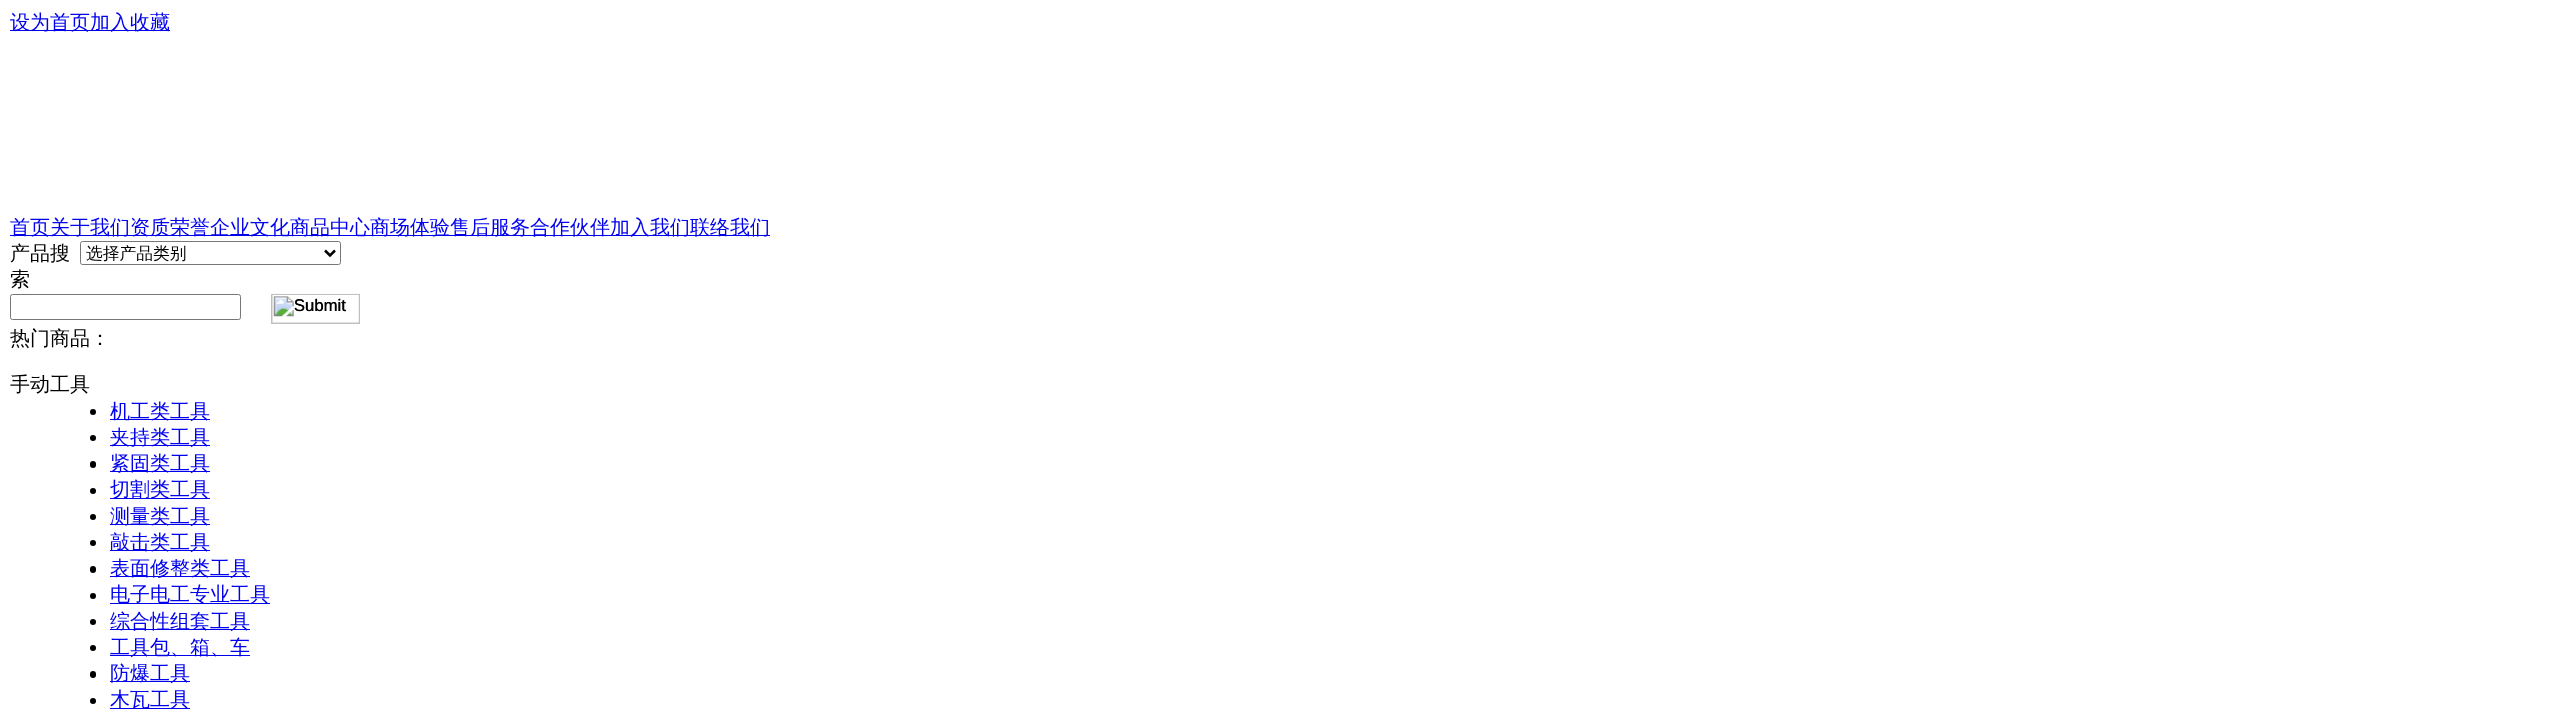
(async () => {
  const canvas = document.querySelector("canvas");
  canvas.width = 2568;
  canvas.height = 719;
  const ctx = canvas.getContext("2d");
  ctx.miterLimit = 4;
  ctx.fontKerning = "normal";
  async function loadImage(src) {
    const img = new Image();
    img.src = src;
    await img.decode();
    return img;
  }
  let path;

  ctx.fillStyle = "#ffffff";
  ctx.fillRect(0, 0, 2568, 719);
  ctx.fillStyle = "#0000ee";
  ctx.fillRect(10, 30, 160, 1);
  ctx.fillRect(10, 235, 760, 1);
  ctx.beginPath();
  ctx.roundRect(80.5, 241.5, 260, 23, 2);
  ctx.strokeStyle = "#767676";
  ctx.stroke();
  path = new Path2D("M325 250.5L330 255.5L335 250.5");
  ctx.strokeStyle = "#000000";
  ctx.lineWidth = 2.5;
  ctx.stroke(path);
  ctx.beginPath();
  ctx.roundRect(10.5, 294.5, 230, 25, 2);
  ctx.strokeStyle = "#767676";
  ctx.lineWidth = 1;
  ctx.stroke();
  ctx.drawImage(await loadImage("img/1.png"), 271, 293, 89, 30);
  ctx.strokeStyle = "#c0c0c0";
  ctx.strokeRect(271.5, 294.5, 88, 29);
  ctx.fillStyle = "#000000";
  ctx.beginPath();
  ctx.arc(93, 412, 3, 0, Math.PI * 2);
  ctx.fill();
  ctx.fillStyle = "#0000ee";
  ctx.fillRect(110, 419, 100, 1);
  ctx.fillStyle = "#000000";
  ctx.beginPath();
  ctx.arc(93, 438, 3, 0, Math.PI * 2);
  ctx.fill();
  ctx.fillStyle = "#0000ee";
  ctx.fillRect(110, 445, 100, 1);
  ctx.fillStyle = "#000000";
  ctx.beginPath();
  ctx.roundRect(90, 461, 6, 7, 3);
  ctx.fill();
  ctx.fillStyle = "#0000ee";
  ctx.fillRect(110, 471, 100, 1);
  ctx.fillStyle = "#000000";
  ctx.beginPath();
  ctx.arc(93, 491, 3, 0, Math.PI * 2);
  ctx.fill();
  ctx.fillStyle = "#0000ee";
  ctx.fillRect(110, 498, 100, 1);
  ctx.fillStyle = "#000000";
  ctx.beginPath();
  ctx.arc(93, 517, 3, 0, Math.PI * 2);
  ctx.fill();
  ctx.fillStyle = "#0000ee";
  ctx.fillRect(110, 524, 100, 1);
  ctx.fillStyle = "#000000";
  ctx.beginPath();
  ctx.arc(93, 543, 3, 0, Math.PI * 2);
  ctx.fill();
  ctx.fillStyle = "#0000ee";
  ctx.fillRect(110, 550, 100, 1);
  ctx.fillStyle = "#000000";
  ctx.beginPath();
  ctx.roundRect(90, 566, 6, 7, 3);
  ctx.fill();
  ctx.fillStyle = "#0000ee";
  ctx.fillRect(110, 576, 140, 1);
  ctx.fillStyle = "#000000";
  ctx.beginPath();
  ctx.arc(93, 596, 3, 0, Math.PI * 2);
  ctx.fill();
  ctx.fillStyle = "#0000ee";
  ctx.fillRect(110, 603, 160, 1);
  ctx.fillStyle = "#000000";
  ctx.beginPath();
  ctx.arc(93, 622, 3, 0, Math.PI * 2);
  ctx.fill();
  ctx.fillStyle = "#0000ee";
  ctx.fillRect(110, 629, 140, 1);
  ctx.fillStyle = "#000000";
  ctx.beginPath();
  ctx.arc(93, 648, 3, 0, Math.PI * 2);
  ctx.fill();
  ctx.fillStyle = "#0000ee";
  ctx.fillRect(110, 655, 140, 1);
  ctx.fillStyle = "#000000";
  ctx.beginPath();
  ctx.roundRect(90, 671, 6, 7, 3);
  ctx.fill();
  ctx.fillStyle = "#0000ee";
  ctx.fillRect(110, 681, 80, 1);
  ctx.fillStyle = "#000000";
  ctx.beginPath();
  ctx.arc(93, 701, 3, 0, Math.PI * 2);
  ctx.fill();
  ctx.fillStyle = "#0000ee";
  ctx.fillRect(110, 708, 80, 1);
  ctx.font = "500 20px WenQuanYi Zen Hei";
  ctx.fillText("设为首页加入收藏", 10, 29);
  ctx.fillText("首页关于我们资质荣誉企业文化商品中心商场体验售后服务合作伙伴加入我们联络我们", 10, 234);
  ctx.fillStyle = "#000000";
  ctx.fillText("产品搜", 10, 260);
  ctx.fillText("索", 10, 286);
  ctx.font = "500 16.75px WenQuanYi Zen Hei";
  ctx.fillText("选择产品类别", 86, 259);
  ctx.font = "16.75px Liberation Sans";
  ctx.fillText("Submit", 294, 311);
  ctx.font = "500 20px WenQuanYi Zen Hei";
  ctx.fillText("热门商品：", 10, 345);
  ctx.fillText("手动工具", 10, 391);
  ctx.fillStyle = "#0000ee";
  for (const [text, x, y] of [
    ["机工类工具", 110, 418],
    ["夹持类工具", 110, 444],
    ["紧固类工具", 110, 470],
    ["切割类工具", 110, 496],
    ["测量类工具", 110, 523],
    ["敲击类工具", 110, 549],
    ["表面修整类工具", 110, 575],
    ["电子电工专业工具", 110, 601],
    ["综合性组套工具", 110, 628],
    ["工具包、箱、车", 110, 654],
    ["防爆工具", 110, 680],
    ["木瓦工具", 110, 706],
  ]) {
    ctx.fillText(text, x, y);
  }
})();
